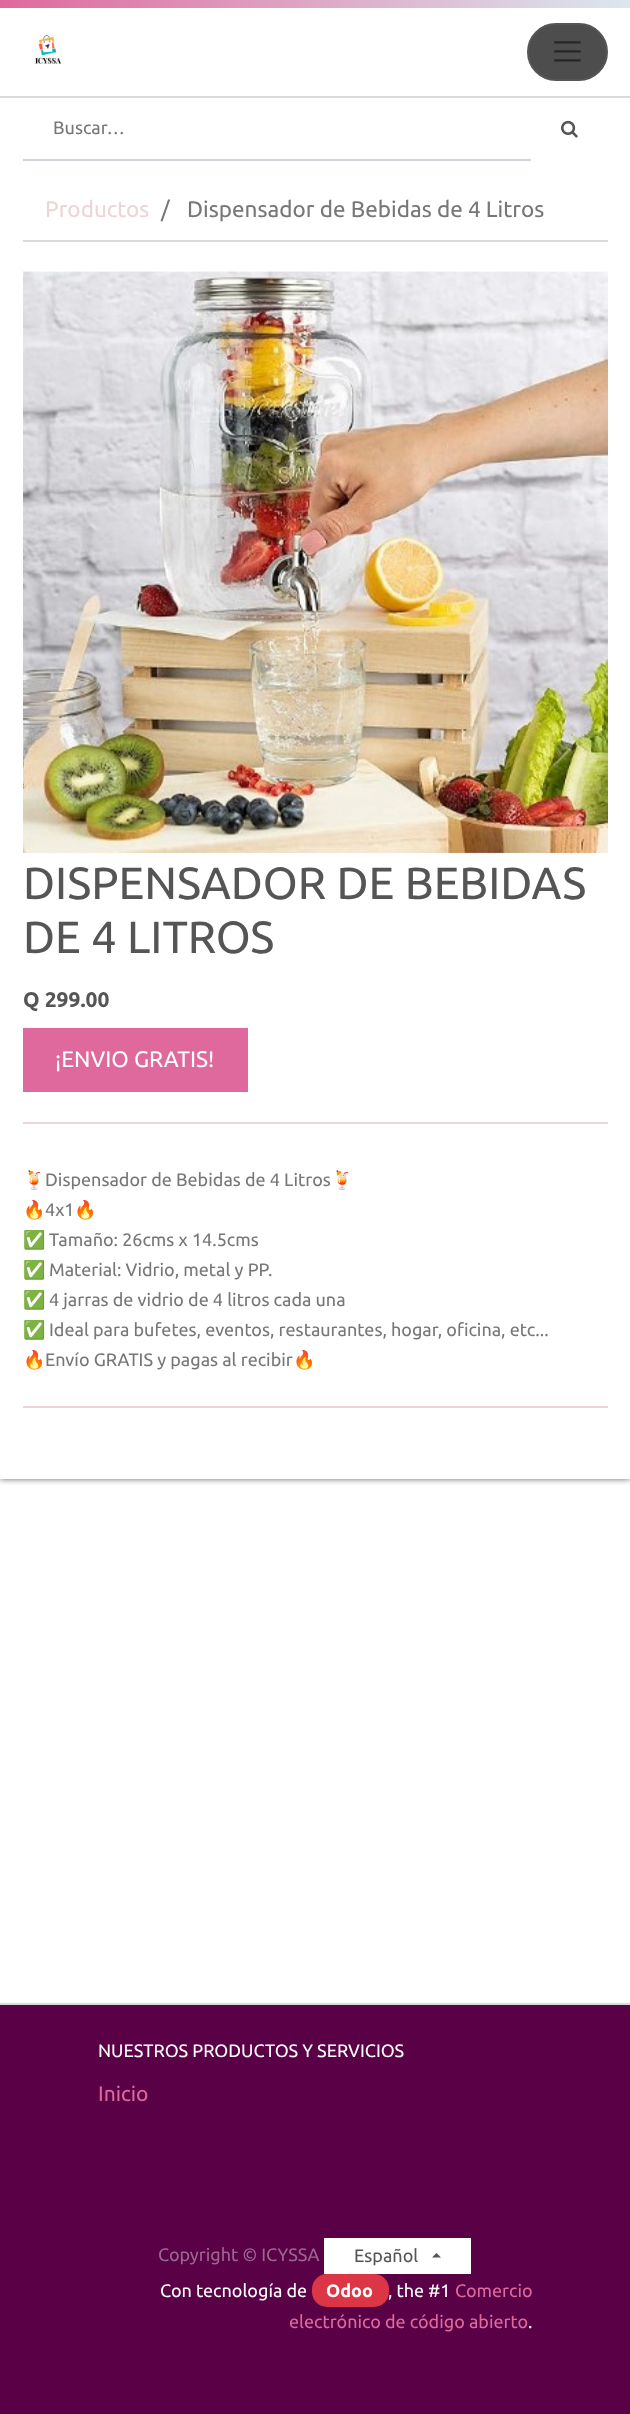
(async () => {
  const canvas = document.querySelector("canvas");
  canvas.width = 630;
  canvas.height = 2414;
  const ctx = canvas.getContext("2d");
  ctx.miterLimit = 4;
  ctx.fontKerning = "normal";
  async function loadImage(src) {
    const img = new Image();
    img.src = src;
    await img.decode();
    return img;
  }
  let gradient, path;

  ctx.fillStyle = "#ffffff";
  ctx.fillRect(0, 0, 630, 2414);
  ctx.save();
  ctx.beginPath();
  ctx.rect(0, 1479, 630, 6);
  ctx.clip();
  ctx.fillStyle = "rgba(50, 50, 50, 0.75)";
  ctx.filter = "blur(3px)";
  ctx.beginPath();
  ctx.rect(0, 98, 630, 1381);
  ctx.fill();
  ctx.filter = "none";
  ctx.restore();
  ctx.fillRect(0, 92, 630, 4);
  ctx.fillStyle = "#d9d9d9";
  ctx.fillRect(0, 96, 630, 2);
  gradient = ctx.createLinearGradient(630, 3.8, 0, 3.7);
  gradient.addColorStop(0, "#dbe8ed");
  gradient.addColorStop(1, "#df699c");
  ctx.fillStyle = gradient;
  ctx.fillRect(0, 0, 630, 8);
  ctx.drawImage(await loadImage("img/1.png"), 35, 35, 27, 29);
  ctx.fillStyle = "#4d4d4d";
  ctx.beginPath();
  ctx.roundRect(528, 24, 79, 56, 28);
  ctx.fill();
  ctx.strokeStyle = "#555555";
  ctx.lineWidth = 2;
  ctx.stroke();
  ctx.drawImage(await loadImage("img/2.png"), 554, 41, 27, 21);
  ctx.fillStyle = "#ced4da";
  ctx.fillRect(23, 159, 510, 2);
  ctx.fillStyle = "#ffffff";
  ctx.fillRect(531, 159, 2, 2);
  ctx.drawImage(await loadImage("img/3.png"), 561, 120, 17, 18);
  ctx.fillStyle = "#d9d9d9";
  ctx.fillRect(23, 240, 585, 2);
  ctx.drawImage(await loadImage("img/4.png"), 23, 271, 585, 583);
  for (const [x, y, w, h, color] of [
    [23, 1028, 225, 64, "#df699c"],
    [23, 1122, 585, 2, "#ecd5d6"],
    [23, 1406, 585, 2, "#ecd5d6"],
    [0, 2005, 630, 409, "#590046"],
    [0, 2003, 630, 2, "#d9d9d9"],
    [324, 2238, 147, 36, "#ffffff"],
  ]) {
    ctx.fillStyle = color;
    ctx.fillRect(x, y, w, h);
  }
  ctx.fillStyle = "#555555";
  path = new Path2D("M441 2257.5H432L436.5 2253Z");
  ctx.fill(path);
  ctx.fillStyle = "#dc3545";
  ctx.beginPath();
  ctx.roundRect(312, 2274, 77, 33, 15);
  ctx.fill();
  ctx.font = "18px Ubuntu";
  ctx.fillStyle = "#777777";
  ctx.fillText("Buscar…", 53, 134);
  ctx.font = "22.5px Ubuntu";
  ctx.fillStyle = "#ecd5d6";
  ctx.fillText("Productos", 45, 217);
  ctx.fillStyle = "#777777";
  ctx.fillText("/", 161, 217);
  ctx.fillText("Dispensador de Bebidas de 4 Litros", 187, 217);
  ctx.font = "45px Ubuntu";
  ctx.fillStyle = "#555555";
  ctx.fillText("DISPENSADOR DE BEBIDAS", 23, 899);
  ctx.fillText("DE 4 LITROS", 23, 953);
  ctx.font = "bold 21px Ubuntu";
  ctx.fillText("Q 299.00", 23, 1007);
  ctx.font = "22.5px Ubuntu";
  ctx.fillStyle = "#ffffff";
  ctx.fillText("¡ENVIO GRATIS!", 55, 1067);
  ctx.font = "18px Noto Color Emoji";
  ctx.fillStyle = "#777777";
  ctx.fillText("🍹", 23, 1186);
  ctx.font = "18px Ubuntu";
  ctx.fillText("Dispensador de Bebidas de 4 Litros", 45, 1186);
  ctx.font = "18px Noto Color Emoji";
  ctx.fillText("🍹", 331, 1186);
  ctx.fillText("🔥", 23, 1216);
  ctx.font = "18px Ubuntu";
  ctx.fillText("4x1", 45, 1216);
  ctx.font = "18px Noto Color Emoji";
  ctx.fillText("🔥", 74, 1216);
  ctx.fillText("✅", 23, 1246);
  ctx.font = "18px Ubuntu";
  ctx.fillText("Tamaño: 26cms x 14.5cms", 49, 1246);
  ctx.font = "18px Noto Color Emoji";
  ctx.fillText("✅", 23, 1276);
  ctx.font = "18px Ubuntu";
  ctx.fillText("Material: Vidrio, metal y PP.", 49, 1276);
  ctx.font = "18px Noto Color Emoji";
  ctx.fillText("✅", 23, 1306);
  ctx.font = "18px Ubuntu";
  ctx.fillText("4 jarras de vidrio de 4 litros cada una", 49, 1306);
  ctx.font = "18px Noto Color Emoji";
  ctx.fillText("✅", 23, 1336);
  ctx.font = "18px Ubuntu";
  ctx.fillText("Ideal para bufetes, eventos, restaurantes, hogar, oficina, etc...", 49, 1336);
  ctx.font = "18px Noto Color Emoji";
  ctx.fillText("🔥", 23, 1366);
  ctx.font = "18px Ubuntu";
  ctx.fillText("Envío GRATIS y pagas al recibir", 45, 1366);
  ctx.font = "18px Noto Color Emoji";
  ctx.fillText("🔥", 293, 1366);
  ctx.font = "18px Ubuntu";
  ctx.fillStyle = "#ffffff";
  ctx.fillText("NUESTROS PRODUCTOS Y SERVICIOS", 98, 2057);
  ctx.font = "21px Ubuntu";
  ctx.fillStyle = "#df699c";
  ctx.fillText("Inicio", 98, 2101);
  ctx.font = "18px Ubuntu";
  ctx.fillStyle = "#9b6690";
  ctx.fillText("Copyright © ICYSSA", 158, 2261);
  ctx.fillStyle = "#555555";
  ctx.fillText("Español", 354, 2262);
  ctx.fillStyle = "#ffffff";
  ctx.fillText("Con tecnología de", 160, 2297);
  ctx.font = "bold 18px Ubuntu";
  ctx.fillText("Odoo", 326, 2297);
  ctx.font = "18px Ubuntu";
  ctx.fillText(", the #1", 388, 2297);
  ctx.fillStyle = "#df699c";
  ctx.fillText("Comercio", 455, 2297);
  ctx.fillText("electrónico de código abierto", 289, 2328);
  ctx.fillStyle = "#ffffff";
  ctx.fillText(".", 528, 2328);
})();
